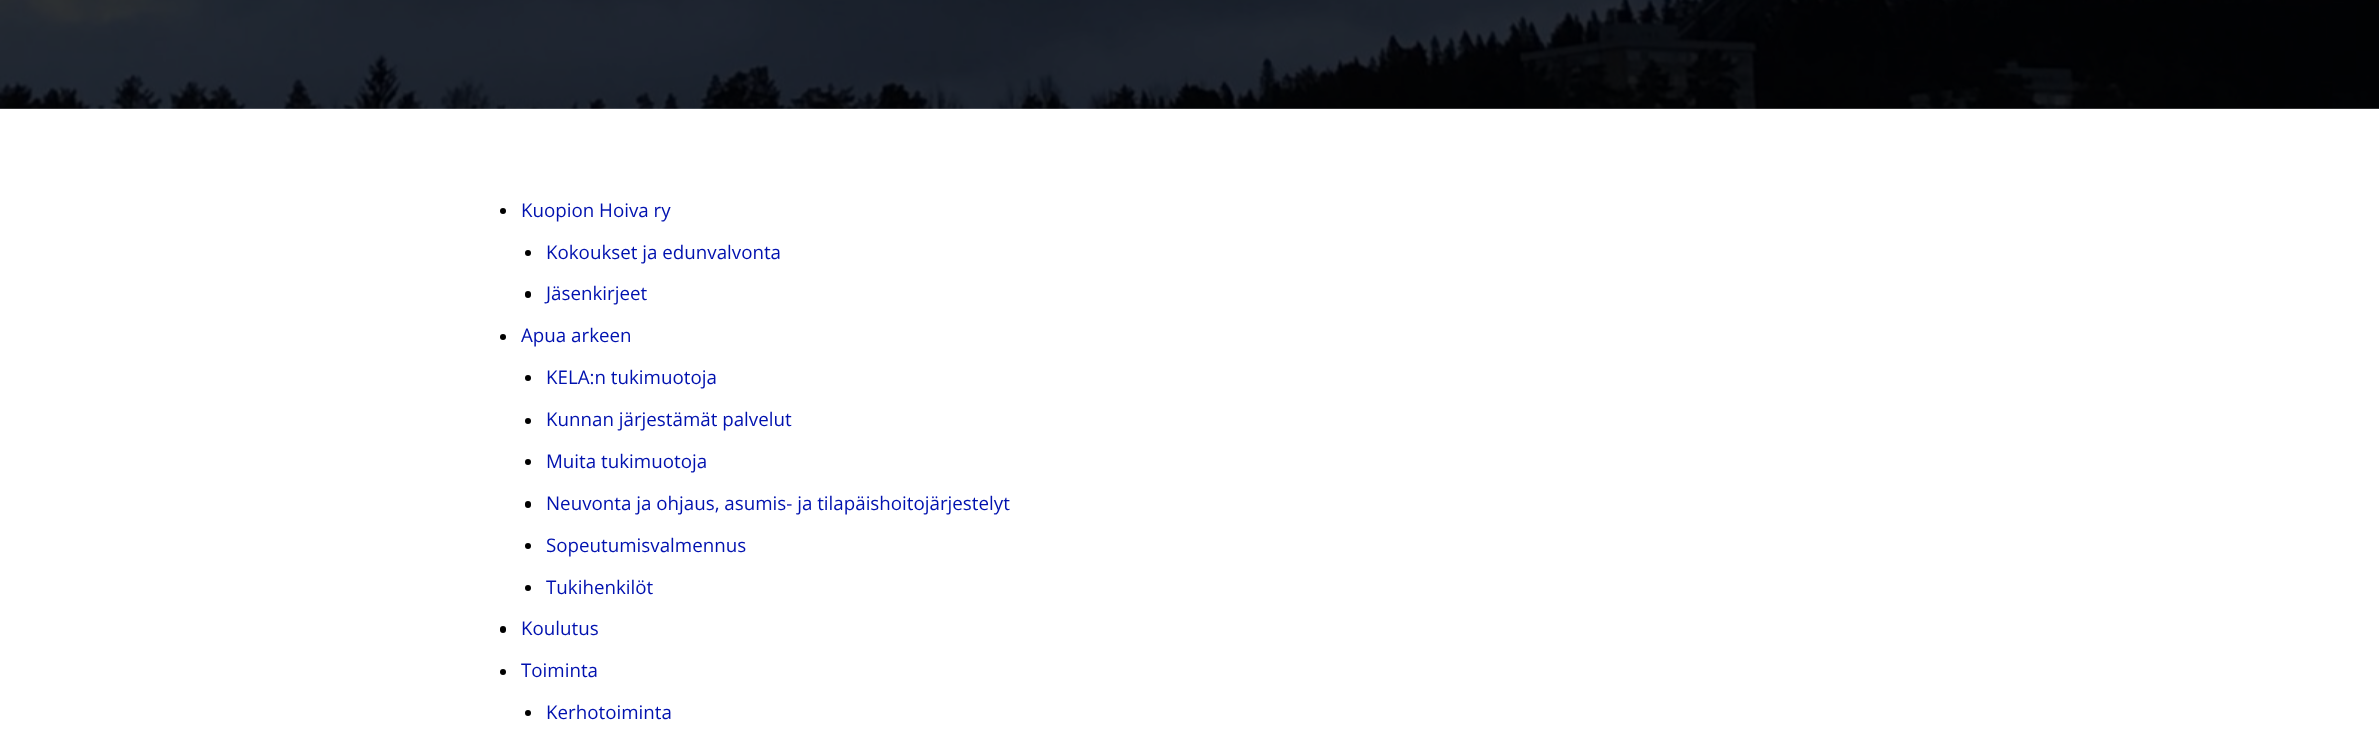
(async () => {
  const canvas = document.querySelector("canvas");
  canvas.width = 2379;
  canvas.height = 730;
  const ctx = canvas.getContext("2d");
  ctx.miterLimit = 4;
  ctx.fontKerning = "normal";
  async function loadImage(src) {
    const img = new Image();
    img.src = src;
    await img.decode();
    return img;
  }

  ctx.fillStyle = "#ffffff";
  ctx.fillRect(0, 0, 2379, 730);
  ctx.drawImage(await loadImage("img/1.png"), 0, 0, 2379, 109);
  ctx.fillStyle = "#000000";
  ctx.beginPath();
  ctx.arc(503, 211, 3, 0, Math.PI * 2);
  ctx.fill();
  ctx.beginPath();
  ctx.arc(528, 253, 3, 0, Math.PI * 2);
  ctx.fill();
  ctx.beginPath();
  ctx.roundRect(525, 291, 6, 7, 3);
  ctx.fill();
  ctx.beginPath();
  ctx.arc(503, 337, 3, 0, Math.PI * 2);
  ctx.fill();
  ctx.beginPath();
  ctx.arc(528, 378, 3, 0, Math.PI * 2);
  ctx.fill();
  ctx.beginPath();
  ctx.arc(528, 421, 3, 0, Math.PI * 2);
  ctx.fill();
  ctx.beginPath();
  ctx.arc(528, 462, 3, 0, Math.PI * 2);
  ctx.fill();
  ctx.beginPath();
  ctx.roundRect(525, 501, 6, 7, 3);
  ctx.fill();
  ctx.beginPath();
  ctx.arc(528, 546, 3, 0, Math.PI * 2);
  ctx.fill();
  ctx.beginPath();
  ctx.arc(528, 588, 3, 0, Math.PI * 2);
  ctx.fill();
  ctx.beginPath();
  ctx.roundRect(500, 626, 6, 7, 3);
  ctx.fill();
  ctx.beginPath();
  ctx.arc(503, 672, 3, 0, Math.PI * 2);
  ctx.fill();
  ctx.beginPath();
  ctx.arc(528, 713, 3, 0, Math.PI * 2);
  ctx.fill();
  ctx.font = "18.75px Open Sans";
  ctx.fillStyle = "#0011af";
  for (const [text, x, y] of [
    ["Kuopion Hoiva ry", 521, 217],
    ["Kokoukset ja edunvalvonta", 546, 259],
    ["Jäsenkirjeet", 546, 300],
    ["Apua arkeen", 521, 342],
    ["KELA:n tukimuotoja", 546, 384],
    ["Kunnan järjestämät palvelut", 546, 426],
    ["Muita tukimuotoja", 546, 468],
    ["Neuvonta ja ohjaus, asumis- ja tilapäishoitojärjestelyt", 546, 510],
    ["Sopeutumisvalmennus", 546, 552],
    ["Tukihenkilöt", 546, 594],
    ["Koulutus", 521, 635],
    ["Toiminta", 521, 677],
    ["Kerhotoiminta", 546, 719],
  ]) {
    ctx.fillText(text, x, y);
  }
})();
